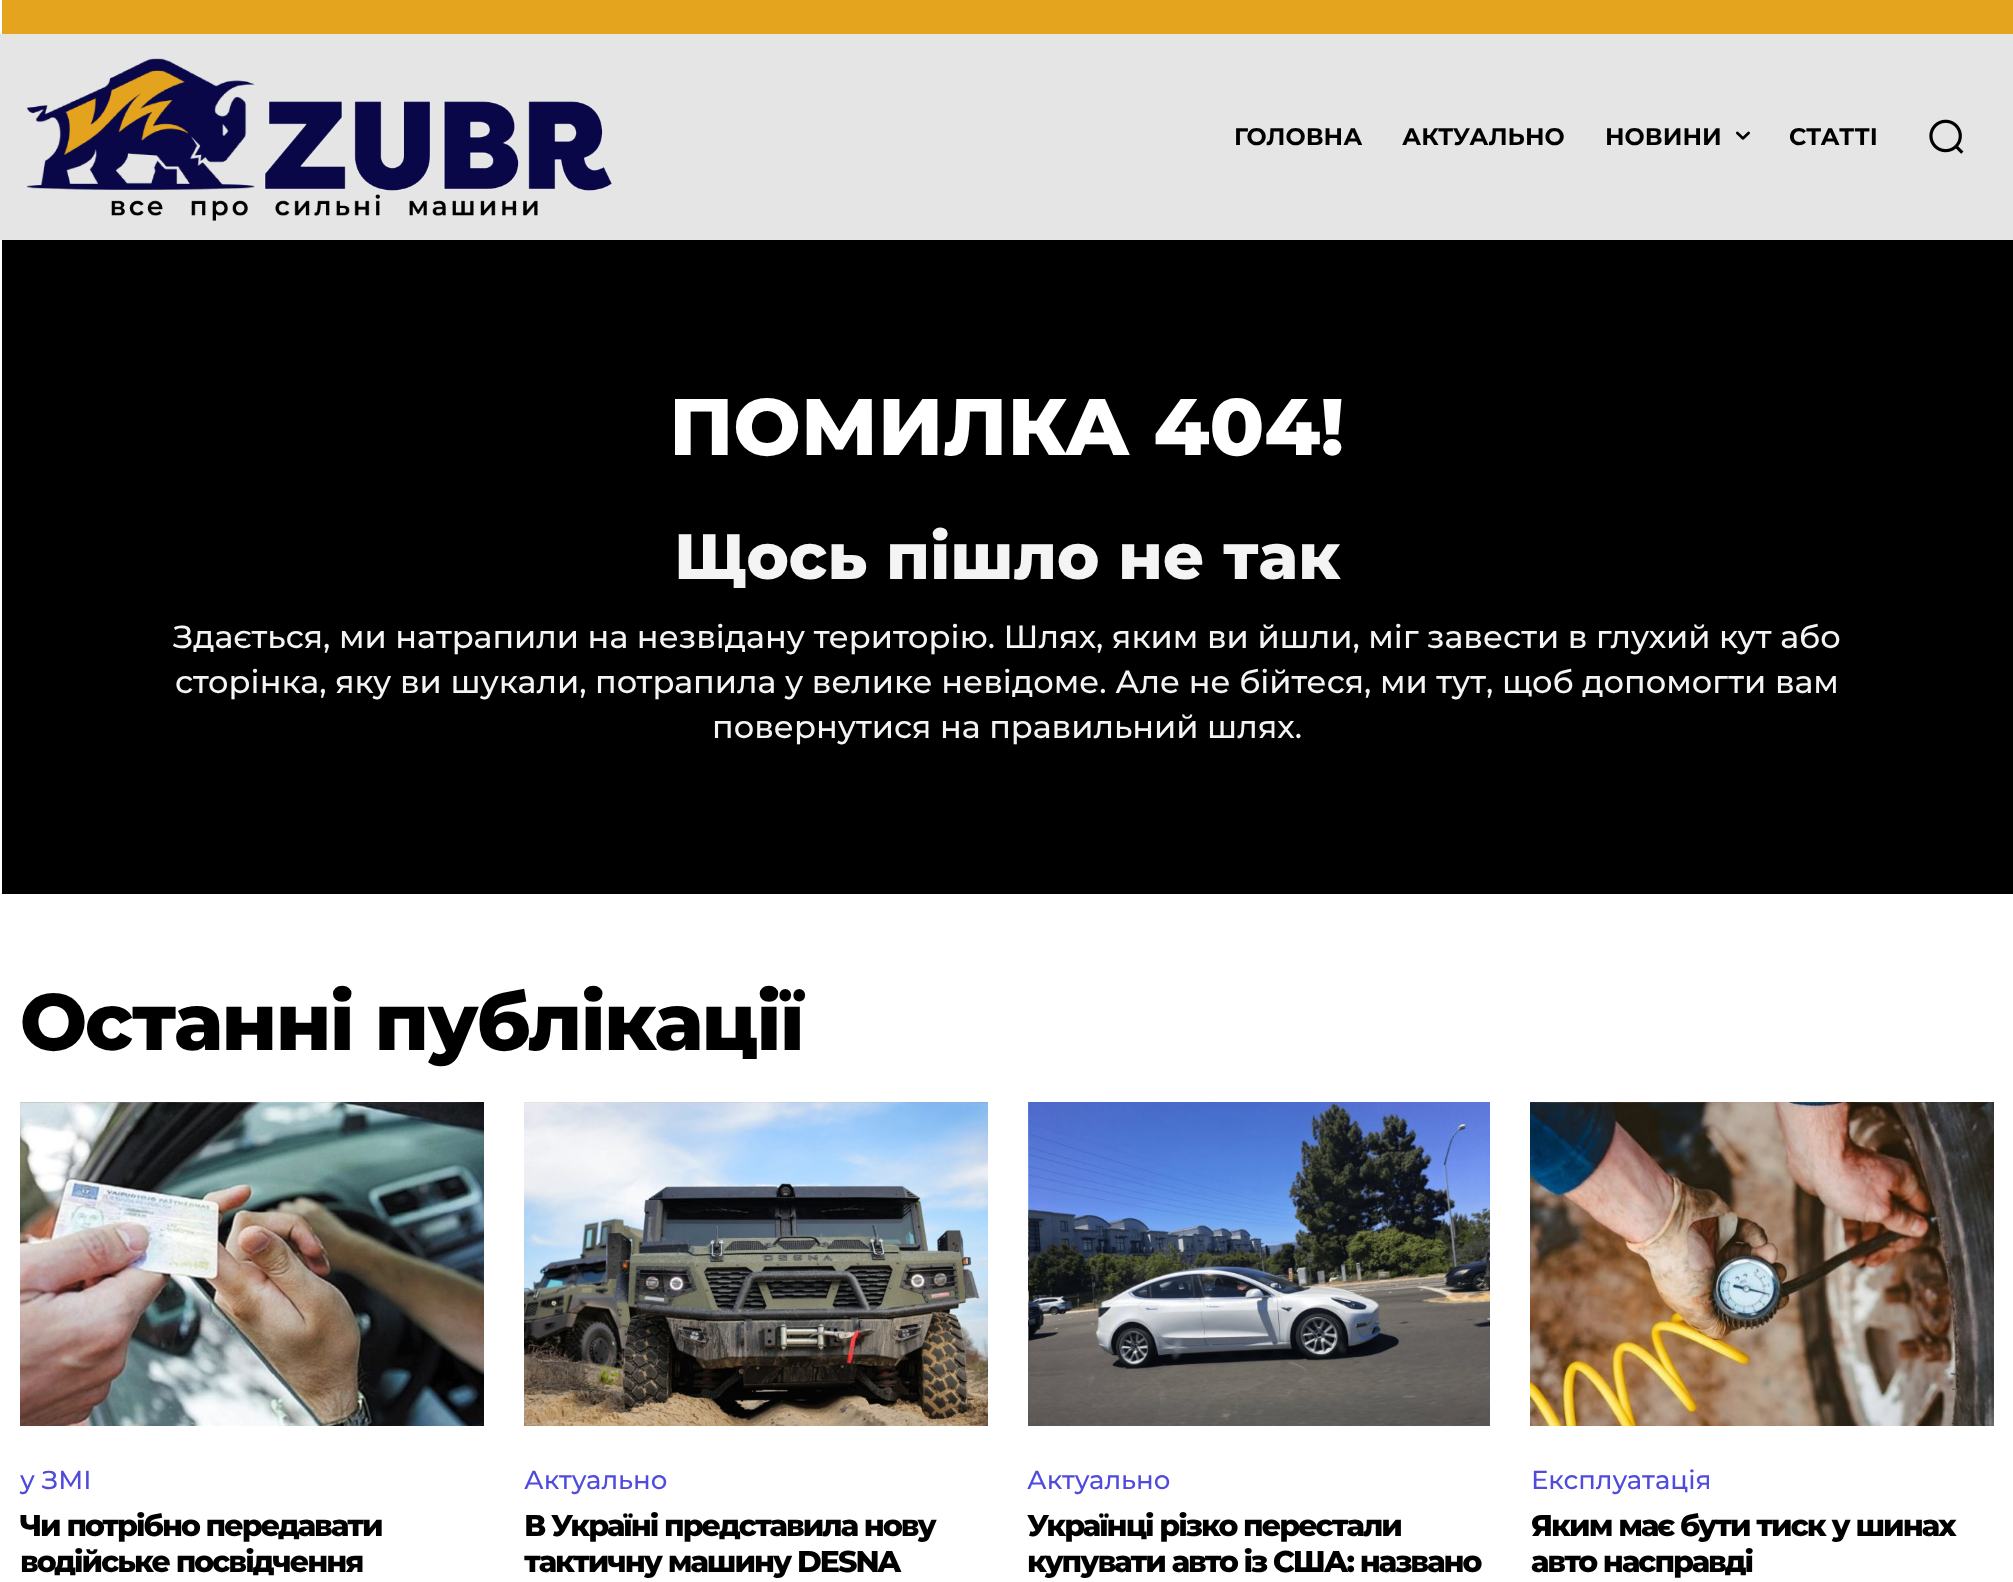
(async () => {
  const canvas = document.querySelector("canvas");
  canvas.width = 2013;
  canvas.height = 1582;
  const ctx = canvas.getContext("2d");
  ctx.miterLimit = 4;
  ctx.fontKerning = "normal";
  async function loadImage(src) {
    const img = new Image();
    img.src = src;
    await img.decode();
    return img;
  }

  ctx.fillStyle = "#ffffff";
  ctx.fillRect(0, 0, 2013, 1582);
  ctx.fillStyle = "#e4a41e";
  ctx.fillRect(2, 0, 2011, 34);
  ctx.fillStyle = "#e5e5e5";
  ctx.fillRect(0, 34, 2013, 206);
  ctx.drawImage(await loadImage("img/1.png"), 26, 58, 587, 163);
  ctx.drawImage(await loadImage("img/2.png"), 1736, 131, 14, 9);
  ctx.drawImage(await loadImage("img/3.png"), 1929, 119, 35, 35);
  ctx.fillStyle = "#000000";
  ctx.fillRect(2, 240, 2011, 654);
  ctx.drawImage(await loadImage("img/4.png"), 20, 1102, 464, 324);
  ctx.drawImage(await loadImage("img/5.png"), 524, 1102, 464, 324);
  ctx.drawImage(await loadImage("img/6.png"), 1028, 1102, 462, 324);
  ctx.drawImage(await loadImage("img/7.png"), 1530, 1102, 464, 324);
  ctx.font = "bold 24px Montserrat";
  for (const [text, x, y] of [
    ["ГОЛОВНА", 1234, 145],
    ["АКТУАЛЬНО", 1402, 145],
    ["НОВИНИ", 1605, 145],
    ["СТАТТІ", 1789, 145],
  ]) {
    ctx.fillText(text, x, y);
  }
  ctx.font = "800 80px Montserrat";
  ctx.fillStyle = "#ffffff";
  ctx.fillText("ПОМИЛКА 404!", 669, 455);
  ctx.font = "800 64px Montserrat";
  ctx.fillStyle = "#f4f4f4";
  ctx.fillText("Щось пішло не так", 674, 579);
  ctx.font = "500 32px Montserrat";
  for (const [text, x, y] of [
    ["Здається, ми натрапили на незвідану територію. Шлях, яким ви йшли, міг завести в глухий кут або", 173, 648],
    ["сторінка, яку ви шукали, потрапила у велике невідоме. Але не бійтеся, ми тут, щоб допомогти вам", 175, 693],
    ["повернутися на правильний шлях.", 712, 738],
  ]) {
    ctx.fillText(text, x, y);
  }
  ctx.letterSpacing = "-2px";
  ctx.font = "800 80px Montserrat";
  ctx.fillStyle = "#000000";
  ctx.fillText("Останні публікації", 20, 1050);
  ctx.letterSpacing = "0px";
  ctx.font = "500 26px Montserrat";
  ctx.fillStyle = "#504bdc";
  ctx.fillText("у ЗМІ", 20, 1489);
  ctx.letterSpacing = "-2px";
  ctx.font = "800 30px Montserrat";
  ctx.fillStyle = "#000000";
  ctx.fillText("Чи потрібно передавати", 20, 1536);
  ctx.fillText("водійське посвідчення", 20, 1572);
  ctx.letterSpacing = "0px";
  ctx.font = "500 26px Montserrat";
  ctx.fillStyle = "#504bdc";
  ctx.fillText("Актуально", 524, 1489);
  ctx.letterSpacing = "-2px";
  ctx.font = "800 30px Montserrat";
  ctx.fillStyle = "#000000";
  ctx.fillText("В Україні представила нову", 524, 1536);
  ctx.fillText("тактичну машину DESNA", 524, 1572);
  ctx.letterSpacing = "0px";
  ctx.font = "500 26px Montserrat";
  ctx.fillStyle = "#504bdc";
  ctx.fillText("Актуально", 1027, 1489);
  ctx.letterSpacing = "-2px";
  ctx.font = "800 30px Montserrat";
  ctx.fillStyle = "#000000";
  ctx.fillText("Українці різко перестали", 1027, 1536);
  ctx.fillText("купувати авто із США: названо", 1027, 1572);
  ctx.letterSpacing = "0px";
  ctx.font = "500 26px Montserrat";
  ctx.fillStyle = "#504bdc";
  ctx.fillText("Експлуатація", 1531, 1489);
  ctx.letterSpacing = "-2px";
  ctx.font = "800 30px Montserrat";
  ctx.fillStyle = "#000000";
  ctx.fillText("Яким має бути тиск у шинах", 1531, 1536);
  ctx.fillText("авто насправді", 1531, 1572);
})();
